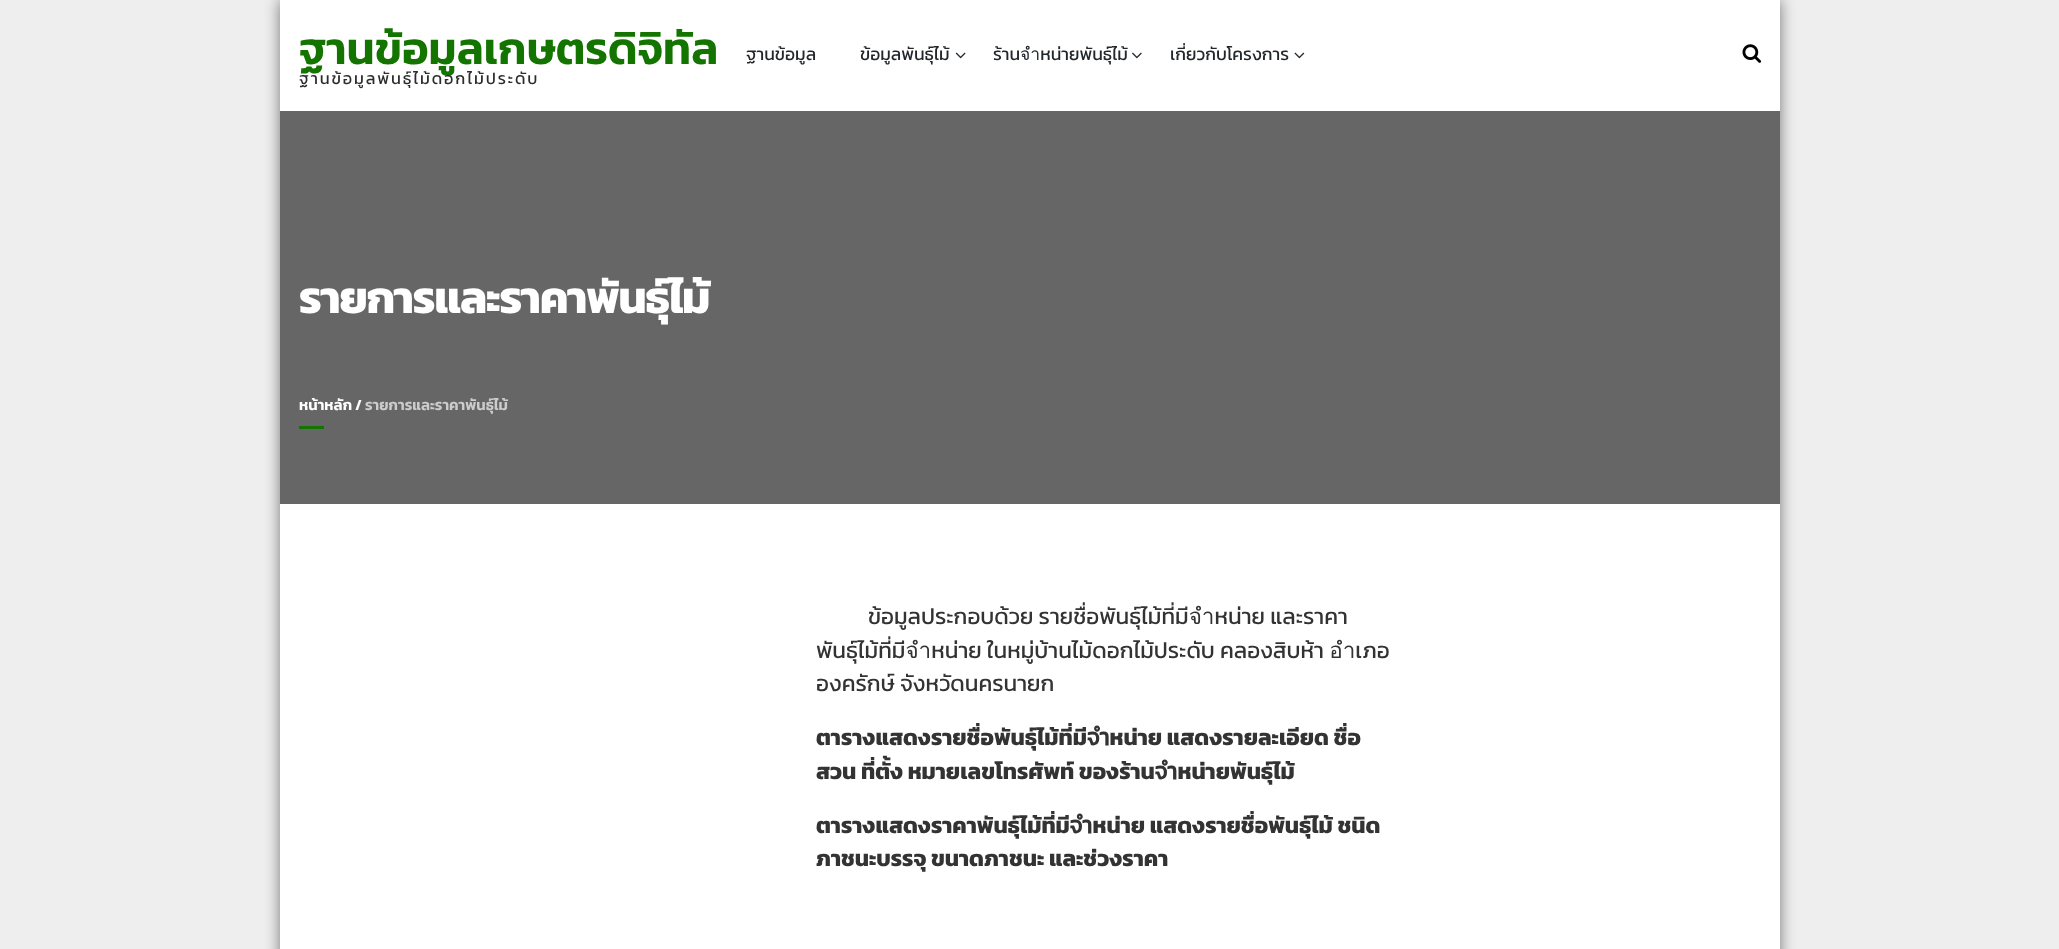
(async () => {
  const canvas = document.querySelector("canvas");
  canvas.width = 2059;
  canvas.height = 949;
  const ctx = canvas.getContext("2d");
  ctx.miterLimit = 4;
  ctx.fontKerning = "normal";
  async function loadImage(src) {
    const img = new Image();
    img.src = src;
    await img.decode();
    return img;
  }

  ctx.fillStyle = "#eeeeee";
  ctx.fillRect(0, 0, 2059, 949);
  ctx.fillStyle = "rgba(0, 0, 0, 0.5)";
  ctx.filter = "blur(7.5px)";
  ctx.beginPath();
  ctx.rect(280, 0, 1500, 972);
  ctx.fill();
  ctx.filter = "none";
  ctx.fillStyle = "#ffffff";
  ctx.fillRect(280, 0, 1500, 949);
  ctx.drawImage(await loadImage("img/1.png"), 955, 52, 11, 7);
  ctx.drawImage(await loadImage("img/2.png"), 1132, 52, 10, 7);
  ctx.drawImage(await loadImage("img/3.png"), 1294, 52, 11, 7);
  ctx.drawImage(await loadImage("img/4.png"), 1742, 44, 20, 19);
  ctx.fillStyle = "#666666";
  ctx.fillRect(280, 111, 1500, 393);
  ctx.fillStyle = "#137500";
  ctx.fillRect(299, 426, 25, 3);
  ctx.font = "600 45px Kanit";
  ctx.fillText("ฐานข้อมูลเกษตรดิจิทัล", 299, 64);
  ctx.letterSpacing = "1.9px";
  ctx.font = "16.25px Kanit";
  ctx.fillStyle = "#2b2c2c";
  ctx.fillText("ฐานข้อมูลพันธุ์ไม้ดอกไม้ประดับ", 299, 84);
  ctx.letterSpacing = "0px";
  ctx.font = "17.5px Kanit";
  ctx.fillStyle = "#22272c";
  for (const [text, x, y] of [
    ["ฐานข้อมูล", 746, 60],
    ["ข้อมูลพันธุ์ไม้", 860, 60],
    ["ร้านจำหน่ายพันธุ์ไม้", 993, 60],
    ["เกี่ยวกับโครงการ", 1170, 60],
  ]) {
    ctx.fillText(text, x, y);
  }
  ctx.letterSpacing = "-1.25px";
  ctx.font = "bold 45px Kanit";
  ctx.fillStyle = "#ffffff";
  ctx.fillText("รายการและราคาพันธุ์ไม้", 299, 313);
  ctx.letterSpacing = "0px";
  ctx.font = "600 15px Kanit";
  ctx.fillText("หน้าหลัก", 299, 410);
  ctx.fillText("/", 355, 410);
  ctx.fillStyle = "#cccccc";
  ctx.fillText("รายการและราคาพันธุ์ไม้", 365, 410);
  ctx.font = "22.5px Kanit";
  ctx.fillStyle = "#333333";
  for (const [text, x, y] of [
    ["ข้อมูลประกอบด้วย รายชื่อพันธุ์ไม้ที่มีจำหน่าย และราคา", 868, 624],
    ["พันธุ์ไม้ที่มีจำหน่าย ในหมู่บ้านไม้ดอกไม้ประดับ คลองสิบห้า อำเภอ", 816, 658],
    ["องครักษ์ จังหวัดนครนายก", 816, 691],
  ]) {
    ctx.fillText(text, x, y);
  }
  ctx.font = "bold 22.5px Kanit";
  for (const [text, x, y] of [
    ["ตารางแสดงรายชื่อพันธุ์ไม้ที่มีจำหน่าย แสดงรายละเอียด ชื่อ", 816, 745],
    ["สวน ที่ตั้ง หมายเลขโทรศัพท์ ของร้านจำหน่ายพันธุ์ไม้", 816, 779],
    ["ตารางแสดงราคาพันธุ์ไม้ที่มีจำหน่าย แสดงรายชื่อพันธุ์ไม้ ชนิด", 816, 833],
    ["ภาชนะบรรจุ ขนาดภาชนะ และช่วงราคา", 816, 866],
  ]) {
    ctx.fillText(text, x, y);
  }
})();
